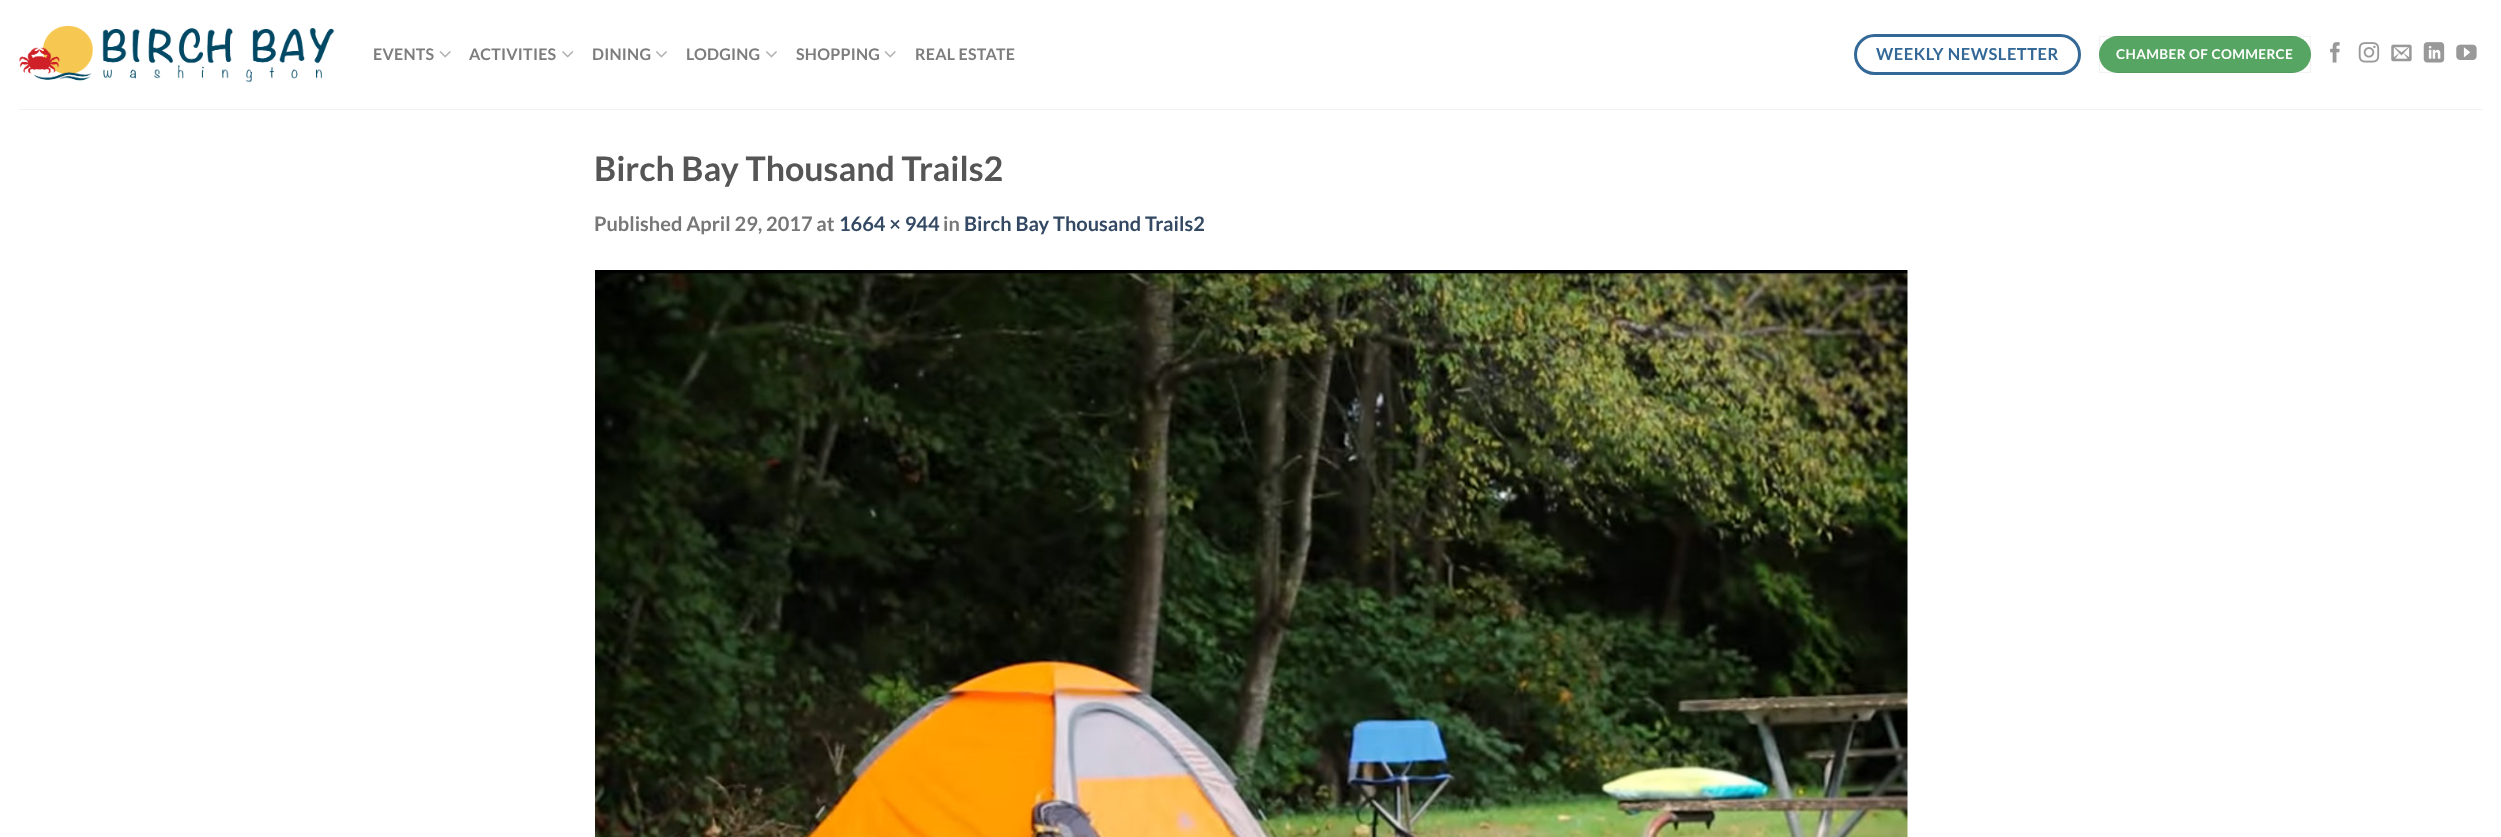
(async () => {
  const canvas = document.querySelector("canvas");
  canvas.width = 2501;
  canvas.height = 837;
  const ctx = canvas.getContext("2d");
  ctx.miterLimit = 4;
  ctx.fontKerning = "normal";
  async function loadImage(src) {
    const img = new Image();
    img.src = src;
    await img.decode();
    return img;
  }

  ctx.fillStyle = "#ffffff";
  ctx.fillRect(0, 0, 2501, 837);
  ctx.drawImage(await loadImage("img/1.png"), 19, 25, 316, 58);
  ctx.drawImage(await loadImage("img/2.png"), 439, 51, 12, 7);
  ctx.drawImage(await loadImage("img/3.png"), 562, 51, 12, 7);
  ctx.drawImage(await loadImage("img/4.png"), 656, 51, 11, 7);
  ctx.drawImage(await loadImage("img/4.png"), 766, 51, 11, 7);
  ctx.drawImage(await loadImage("img/2.png"), 884, 51, 12, 7);
  ctx.beginPath();
  ctx.roundRect(1855.5, 35.5, 224, 38, 19);
  ctx.strokeStyle = "#346896";
  ctx.lineWidth = 3;
  ctx.stroke();
  ctx.fillStyle = "#56a562";
  ctx.beginPath();
  ctx.roundRect(2099, 36, 212, 37, 18.5);
  ctx.fill();
  ctx.strokeStyle = "rgba(0, 0, 0, 0.05)";
  ctx.lineWidth = 1;
  ctx.strokeRect(2099.5, 36.5, 211, 36);
  ctx.drawImage(await loadImage("img/5.png"), 2330, 42, 10, 21);
  ctx.drawImage(await loadImage("img/6.png"), 2358, 42, 22, 21);
  ctx.drawImage(await loadImage("img/7.png"), 2391, 44, 21, 18);
  ctx.drawImage(await loadImage("img/8.png"), 2423, 42, 22, 21);
  ctx.drawImage(await loadImage("img/9.png"), 2456, 44, 21, 16);
  ctx.fillStyle = "#f1f1f1";
  ctx.fillRect(19, 109, 2464, 1);
  ctx.drawImage(await loadImage("img/10.png"), 595, 270, 1313, 567);
  ctx.letterSpacing = "0.25px";
  ctx.font = "bold 16px Lato";
  ctx.fillStyle = "#7d7d7d";
  for (const [text, x, y] of [
    ["EVENTS", 373, 60],
    ["ACTIVITIES", 469, 60],
    ["DINING", 592, 60],
    ["LODGING", 686, 60],
    ["SHOPPING", 796, 60],
    ["REAL ESTATE", 915, 60],
  ]) {
    ctx.fillText(text, x, y);
  }
  ctx.letterSpacing = "0.5px";
  ctx.font = "bold 16.5px Lato";
  ctx.fillStyle = "#346896";
  ctx.fillText("WEEKLY NEWSLETTER", 1876, 60);
  ctx.letterSpacing = "0.4px";
  ctx.font = "bold 13.6px Lato";
  ctx.fillStyle = "#ffffff";
  ctx.fillText("CHAMBER OF COMMERCE", 2116, 59);
  ctx.letterSpacing = "0px";
  ctx.font = "bold 34px Lato";
  ctx.fillStyle = "#555555";
  ctx.fillText("Birch Bay Thousand Trails2", 594, 181);
  ctx.font = "bold 20px Lato";
  ctx.fillStyle = "#777777";
  ctx.fillText("Published April 29, 2017 at", 594, 231);
  ctx.fillStyle = "#334862";
  ctx.fillText("1664 × 944", 839, 231);
  ctx.fillStyle = "#777777";
  ctx.fillText("in", 943, 231);
  ctx.fillStyle = "#334862";
  ctx.fillText("Birch Bay Thousand Trails2", 964, 231);
})();
